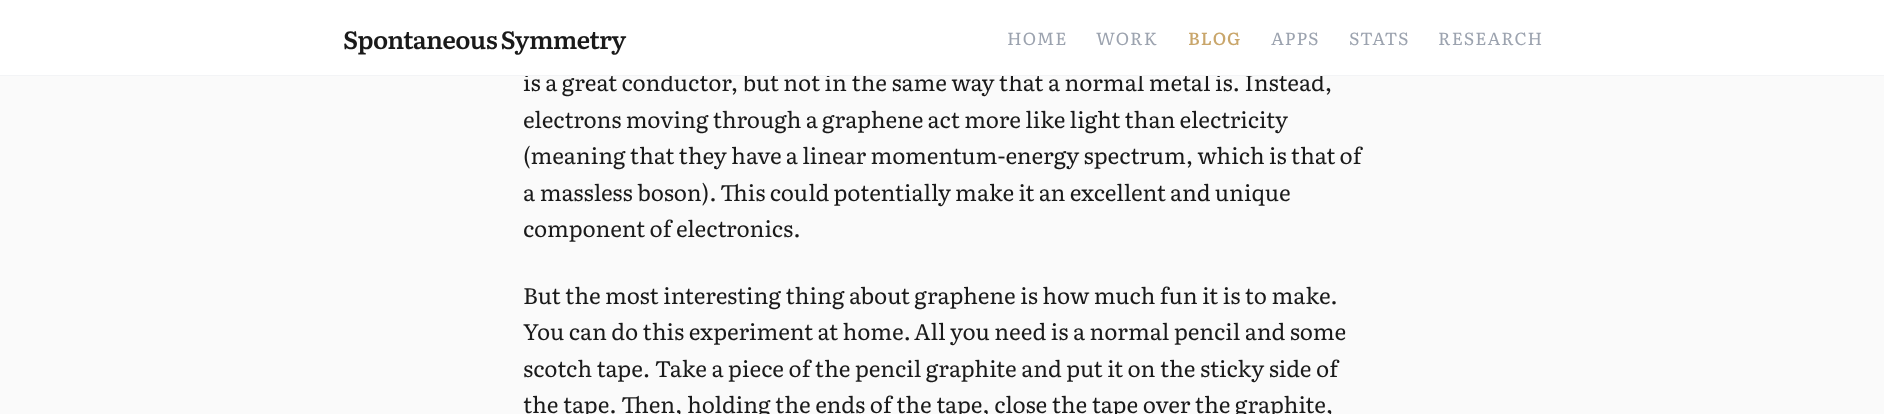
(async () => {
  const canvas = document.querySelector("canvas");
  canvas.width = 1884;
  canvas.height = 414;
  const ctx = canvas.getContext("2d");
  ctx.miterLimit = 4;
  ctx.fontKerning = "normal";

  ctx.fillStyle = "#fafafa";
  ctx.fillRect(0, 0, 1884, 414);
  ctx.font = "22.5px Literata";
  ctx.fillStyle = "#1a1a1a";
  ctx.fillText("is a great conductor, but not in the same way that a normal metal is. Instead,", 523, 91);
  ctx.fillStyle = "#ffffff";
  ctx.fillRect(0, 0, 1884, 75);
  ctx.letterSpacing = "1px";
  ctx.font = "17.5px Literata";
  ctx.fillStyle = "#9ca3af";
  for (const [text, x, y] of [
    ["RESEARCH", 1438, 45],
    ["STATS", 1349, 45],
    ["APPS", 1271, 45],
  ]) {
    ctx.fillText(text, x, y);
  }
  ctx.font = "500 17.5px Literata";
  ctx.fillStyle = "#c9a66b";
  ctx.fillText("BLOG", 1188, 45);
  ctx.font = "17.5px Literata";
  ctx.fillStyle = "#9ca3af";
  ctx.fillText("WORK", 1096, 45);
  ctx.fillText("HOME", 1007, 45);
  ctx.letterSpacing = "-0.6px";
  ctx.wordSpacing = "-1px";
  ctx.font = "600 25px Literata";
  ctx.fillStyle = "#1a1a1a";
  ctx.fillText("Spontaneous Symmetry", 343, 49);
  ctx.fillStyle = "#f3f4f6";
  ctx.fillRect(0, 75, 1884, 1);
  ctx.letterSpacing = "0px";
  ctx.wordSpacing = "-0.25px";
  ctx.font = "22.5px Literata";
  ctx.fillStyle = "#1a1a1a";
  ctx.fillText("electrons moving through a graphene act more like light than electricity", 523, 128);
  ctx.fillText("(meaning that they have a linear momentum-energy spectrum, which is that of", 523, 164);
  ctx.wordSpacing = "0px";
  ctx.fillText("a massless boson).", 523, 201);
  ctx.wordSpacing = "-0.25px";
  ctx.fillText("This could potentially make it an excellent and unique", 720, 201);
  ctx.wordSpacing = "0px";
  for (const [text, x, y] of [
    ["component of electronics.", 523, 237],
    ["But the most interesting thing about graphene is how much fun it is to make.", 523, 304],
    ["You can do this experiment at home.", 523, 340],
    ["All you need is a normal pencil and some", 914, 340],
    ["scotch tape. Take a piece of the pencil graphite and put it on the sticky side of", 523, 377],
    ["the tape. Then, holding the ends of the tape, close the tape over the graphite,", 523, 413],
  ]) {
    ctx.fillText(text, x, y);
  }
})();
